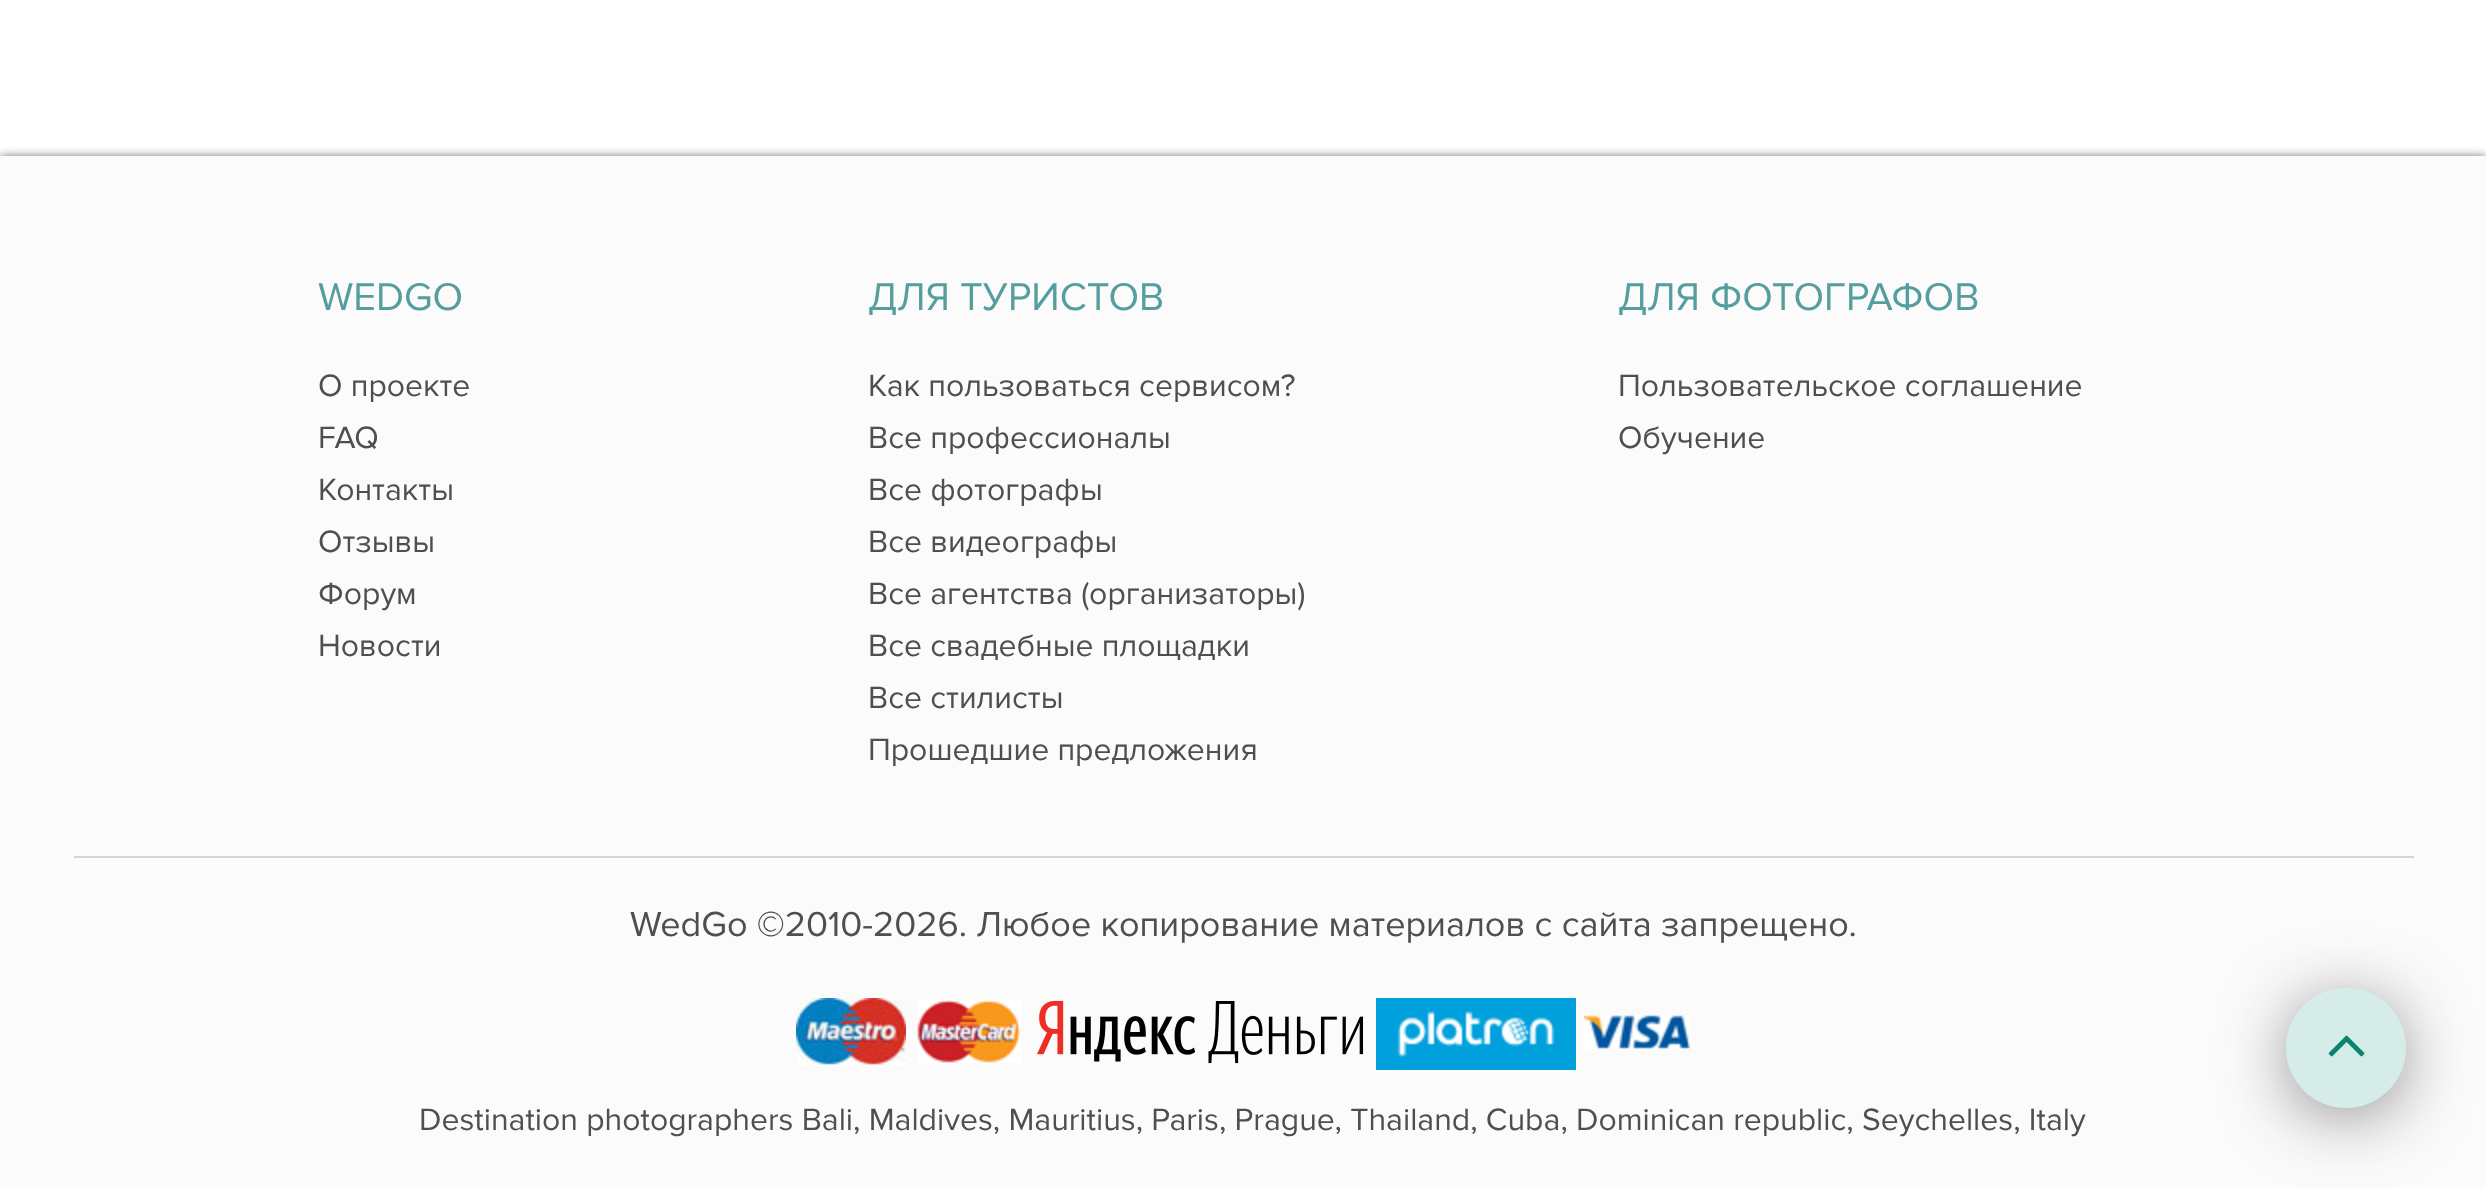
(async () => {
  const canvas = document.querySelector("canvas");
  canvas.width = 2486;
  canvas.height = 1188;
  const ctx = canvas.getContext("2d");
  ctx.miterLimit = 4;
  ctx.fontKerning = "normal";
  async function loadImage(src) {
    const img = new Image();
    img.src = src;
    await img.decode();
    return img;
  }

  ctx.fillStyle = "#ffffff";
  ctx.fillRect(0, 0, 2486, 1188);
  ctx.fillStyle = "#777777";
  ctx.filter = "blur(5px)";
  ctx.beginPath();
  ctx.rect(0, 156, 2486, 1032);
  ctx.fill();
  ctx.filter = "none";
  ctx.fillStyle = "#fbfbfb";
  ctx.fillRect(0, 156, 2486, 1032);
  ctx.fillStyle = "#d5d5d5";
  ctx.fillRect(74, 856, 2340, 2);
  ctx.drawImage(await loadImage("img/1.png"), 796, 998, 110, 68);
  ctx.drawImage(await loadImage("img/2.png"), 917, 1000, 104, 63);
  ctx.drawImage(await loadImage("img/3.png"), 1037, 1000, 327, 64);
  ctx.drawImage(await loadImage("img/4.png"), 1376, 998, 200, 72);
  ctx.drawImage(await loadImage("img/5.png"), 1584, 1015, 106, 34);
  ctx.fillStyle = "#333333";
  ctx.filter = "blur(40px)";
  ctx.beginPath();
  ctx.roundRect(2302, 1014, 88, 88, 44);
  ctx.fill();
  ctx.filter = "none";
  ctx.fillStyle = "#d6ece8";
  ctx.beginPath();
  ctx.arc(2346, 1048, 60, 0, Math.PI * 2);
  ctx.fill();
  ctx.save();
  ctx.beginPath();
  ctx.roundRect(2286, 988, 120, 120, 60);
  ctx.clip();
  ctx.fillRect(2287, 988, 118, 46);
  ctx.restore();
  ctx.drawImage(await loadImage("img/6.png"), 2328, 1035, 37, 22);
  ctx.font = "40px Proxima Nova";
  ctx.fillStyle = "#559e9e";
  ctx.fillText("WEDGO", 318, 310);
  ctx.font = "32px Proxima Nova";
  ctx.fillStyle = "#4f4f4f";
  for (const [text, x, y] of [
    ["О проекте", 318, 396],
    ["FAQ", 318, 448],
    ["Контакты", 318, 500],
    ["Отзывы", 318, 552],
    ["Форум", 318, 604],
    ["Новости", 318, 656],
  ]) {
    ctx.fillText(text, x, y);
  }
  ctx.font = "40px Proxima Nova";
  ctx.fillStyle = "#559e9e";
  ctx.fillText("ДЛЯ ТУРИСТОВ", 868, 310);
  ctx.font = "32px Proxima Nova";
  ctx.fillStyle = "#4f4f4f";
  for (const [text, x, y] of [
    ["Как пользоваться сервисом?", 868, 396],
    ["Все профессионалы", 868, 448],
    ["Все фотографы", 868, 500],
    ["Все видеографы", 868, 552],
    ["Все агентства (организаторы)", 868, 604],
    ["Все свадебные площадки", 868, 656],
    ["Все стилисты", 868, 708],
    ["Прошедшие предложения", 868, 760],
  ]) {
    ctx.fillText(text, x, y);
  }
  ctx.font = "40px Proxima Nova";
  ctx.fillStyle = "#559e9e";
  ctx.fillText("ДЛЯ ФОТОГРАФОВ", 1618, 310);
  ctx.font = "32px Proxima Nova";
  ctx.fillStyle = "#4f4f4f";
  ctx.fillText("Пользовательское соглашение", 1618, 396);
  ctx.fillText("Обучение", 1618, 448);
  ctx.font = "36px Proxima Nova";
  ctx.fillText("WedGo ©2010-2026. Любое копирование материалов с сайта запрещено.", 630, 936);
  ctx.font = "32px Proxima Nova";
  ctx.fillText("Destination photographers Bali, Maldives, Mauritius, Paris, Prague, Thailand, Cuba, Dominican republic, Seychelles, Italy", 419, 1130);
})();
